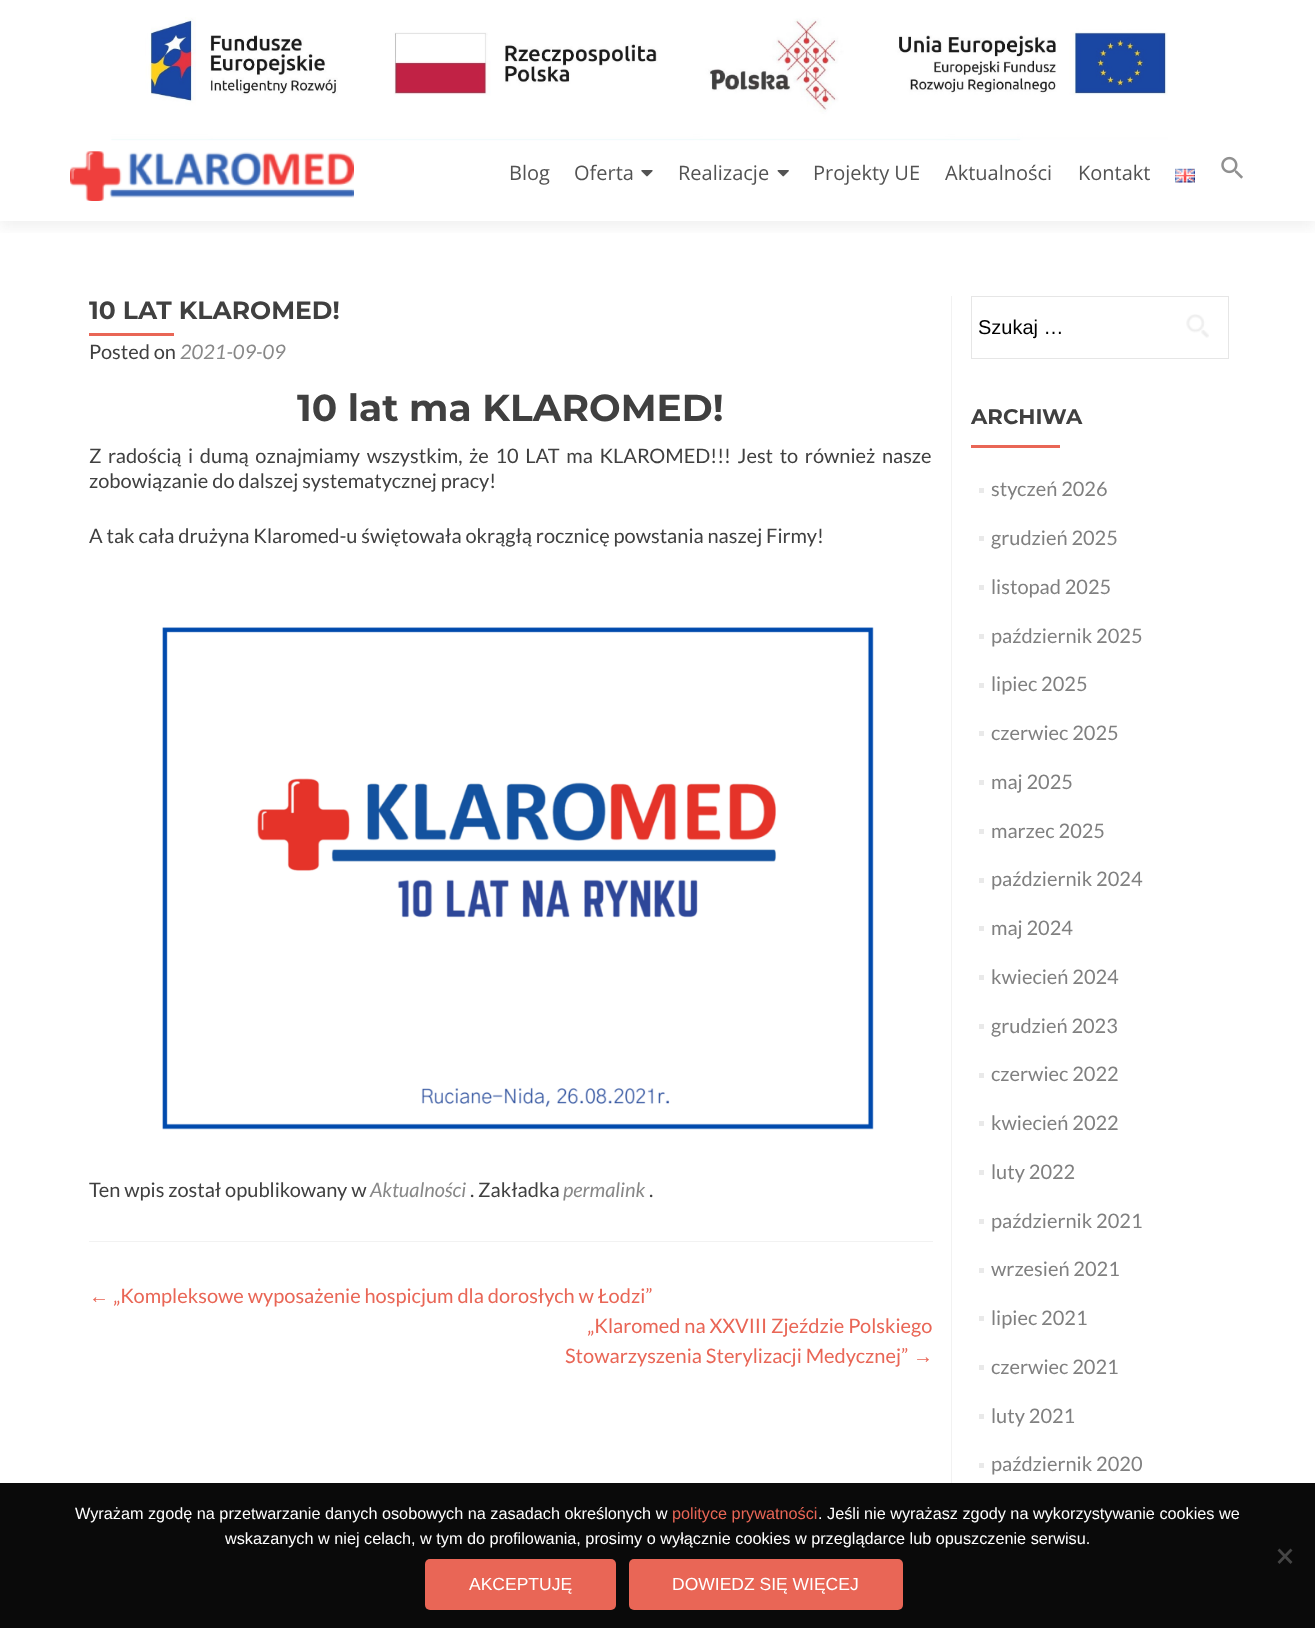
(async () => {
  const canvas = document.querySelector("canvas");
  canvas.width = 1315;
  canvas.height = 1628;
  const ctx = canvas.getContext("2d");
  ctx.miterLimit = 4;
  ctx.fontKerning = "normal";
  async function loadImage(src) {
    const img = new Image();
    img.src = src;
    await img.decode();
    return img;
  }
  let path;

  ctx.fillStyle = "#ffffff";
  ctx.fillRect(0, 0, 1315, 1628);
  ctx.save();
  ctx.beginPath();
  ctx.rect(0, 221, 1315, 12);
  ctx.clip();
  ctx.fillStyle = "rgba(71, 71, 71, 0.08)";
  ctx.filter = "blur(7px)";
  ctx.beginPath();
  ctx.rect(0, 6, 1315, 222);
  ctx.fill();
  ctx.filter = "none";
  ctx.restore();
  ctx.drawImage(await loadImage("img/1.png"), 111, 17, 1057, 124);
  ctx.drawImage(await loadImage("img/2.png"), 70, 151, 284, 50);
  ctx.drawImage(await loadImage("img/3.png"), 641, 170, 12, 7);
  ctx.drawImage(await loadImage("img/4.png"), 777, 170, 12, 7);
  ctx.drawImage(await loadImage("img/5.png"), 1175, 168, 20, 15);
  ctx.drawImage(await loadImage("img/6.png"), 1221, 156, 22, 23);
  ctx.fillStyle = "#f2f2f2";
  ctx.fillRect(89, 1241, 844, 1);
  ctx.fillStyle = "#e96656";
  ctx.fillRect(89, 333, 85, 3);
  ctx.drawImage(await loadImage("img/7.png"), 162, 627, 712, 503);
  ctx.fillStyle = "#f2f2f2";
  ctx.fillRect(951, 296, 1, 1187);
  ctx.strokeStyle = "#e6e6e6";
  ctx.strokeRect(971.5, 296.5, 257, 62);
  ctx.drawImage(await loadImage("img/8.png"), 1186, 314, 23, 24);
  for (const [x, y, w, h, color] of [
    [971, 445, 89, 3, "#e96656"],
    [979, 488, 5, 5, "#e9e9e9"],
    [979, 536, 5, 5, "#e9e9e9"],
    [979, 585, 5, 5, "#e9e9e9"],
    [979, 634, 5, 5, "#e9e9e9"],
    [979, 683, 5, 5, "#e9e9e9"],
    [979, 731, 5, 5, "#e9e9e9"],
    [979, 780, 5, 5, "#e9e9e9"],
    [979, 829, 5, 5, "#e9e9e9"],
    [979, 878, 5, 5, "#e9e9e9"],
    [979, 926, 5, 5, "#e9e9e9"],
    [979, 975, 5, 5, "#e9e9e9"],
    [979, 1024, 5, 5, "#e9e9e9"],
    [979, 1073, 5, 5, "#e9e9e9"],
    [979, 1121, 5, 5, "#e9e9e9"],
    [979, 1170, 5, 5, "#e9e9e9"],
    [979, 1219, 5, 5, "#e9e9e9"],
    [979, 1268, 5, 5, "#e9e9e9"],
    [979, 1316, 5, 5, "#e9e9e9"],
    [979, 1365, 5, 5, "#e9e9e9"],
    [979, 1414, 5, 5, "#e9e9e9"],
    [979, 1463, 5, 5, "#e9e9e9"],
    [0, 1483, 1315, 145, "#0a0a0a"],
  ]) {
    ctx.fillStyle = color;
    ctx.fillRect(x, y, w, h);
  }
  ctx.fillStyle = "#454545";
  path = new Path2D("M1290.5 1548.5L1292.5 1550.5L1279.5 1564L1277.5 1562Z");
  ctx.fill(path);
  path = new Path2D("M1277.5 1550.5L1279.5 1548.5L1292.5 1562L1290.5 1564Z");
  ctx.fill(path);
  ctx.fillStyle = "#e96656";
  ctx.beginPath();
  ctx.roundRect(425, 1559, 191, 51, 5);
  ctx.fill();
  ctx.beginPath();
  ctx.roundRect(629, 1559, 274, 51, 5);
  ctx.fill();
  ctx.font = "20px Open Sans";
  ctx.fillStyle = "#535353";
  for (const [text, x, y] of [
    ["Blog", 509, 180],
    ["Oferta", 574, 180],
    ["Realizacje", 678, 180],
    ["Projekty UE", 813, 180],
    ["Aktualności", 945, 180],
    ["Kontakt", 1078, 180],
  ]) {
    ctx.fillText(text, x, y);
  }
  ctx.font = "bold 25px Montserrat";
  ctx.fillStyle = "#404040";
  ctx.fillText("10 LAT KLAROMED!", 89, 319);
  ctx.font = "20px Lato";
  ctx.fillText("Posted on", 89, 359);
  ctx.font = "italic 20px Lato";
  ctx.fillStyle = "#888888";
  ctx.fillText("2021-09-09", 180, 359);
  ctx.font = "bold 37.5px Montserrat";
  ctx.fillStyle = "#404040";
  ctx.fillText("10 lat ma KLAROMED!", 297, 421);
  ctx.wordSpacing = "2.75px";
  ctx.font = "20px Lato";
  ctx.fillText("Z radością i dumą oznajmiamy wszystkim, że 10 LAT ma KLAROMED!!! Jest to również nasze", 89, 463);
  ctx.wordSpacing = "0px";
  for (const [text, x, y] of [
    ["zobowiązanie do dalszej systematycznej pracy!", 89, 488],
    ["A tak cała drużyna Klaromed-u świętowała okrągłą rocznicę powstania naszej Firmy!", 89, 543],
    ["Ten wpis został opublikowany w", 89, 1197],
  ]) {
    ctx.fillText(text, x, y);
  }
  ctx.font = "italic 20px Lato";
  ctx.fillStyle = "#888888";
  ctx.fillText("Aktualności", 370, 1197);
  ctx.font = "20px Lato";
  ctx.fillStyle = "#404040";
  ctx.fillText(". Zakładka", 470, 1197);
  ctx.font = "italic 20px Lato";
  ctx.fillStyle = "#888888";
  ctx.fillText("permalink", 563, 1197);
  ctx.font = "20px Lato";
  ctx.fillStyle = "#404040";
  ctx.fillText(".", 649, 1197);
  ctx.font = "20px Liberation Sans";
  ctx.fillStyle = "#e96656";
  ctx.fillText("←", 89, 1303);
  ctx.font = "20px Lato";
  for (const [text, x, y] of [
    ["„Kompleksowe wyposażenie hospicjum dla dorosłych w Łodzi”", 113, 1303],
    ["„Klaromed na XXVIII Zjeździe Polskiego", 587, 1333],
    ["Stowarzyszenia Sterylizacji Medycznej”", 565, 1363],
  ]) {
    ctx.fillText(text, x, y);
  }
  ctx.font = "20px Liberation Sans";
  ctx.fillText("→", 913, 1363);
  ctx.fillStyle = "#000000";
  ctx.fillText("Szukaj …", 978, 334);
  ctx.font = "bold 21.25px Montserrat";
  ctx.fillStyle = "#404040";
  ctx.fillText("ARCHIWA", 971, 424);
  ctx.font = "20px Lato";
  ctx.fillStyle = "#808080";
  for (const [text, x, y] of [
    ["styczeń 2026", 991, 496],
    ["grudzień 2025", 991, 545],
    ["listopad 2025", 991, 594],
    ["październik 2025", 991, 643],
    ["lipiec 2025", 991, 691],
    ["czerwiec 2025", 991, 740],
    ["maj 2025", 991, 789],
    ["marzec 2025", 991, 838],
    ["październik 2024", 991, 886],
    ["maj 2024", 991, 935],
    ["kwiecień 2024", 991, 984],
    ["grudzień 2023", 991, 1033],
    ["czerwiec 2022", 991, 1081],
    ["kwiecień 2022", 991, 1130],
    ["luty 2022", 991, 1179],
    ["październik 2021", 991, 1228],
    ["wrzesień 2021", 991, 1276],
    ["lipiec 2021", 991, 1325],
    ["czerwiec 2021", 991, 1374],
    ["luty 2021", 991, 1423],
    ["październik 2020", 991, 1471],
  ]) {
    ctx.fillText(text, x, y);
  }
  ctx.font = "16.25px Liberation Sans";
  ctx.fillStyle = "#ffffff";
  ctx.fillText("Wyrażam zgodę na przetwarzanie danych osobowych na zasadach określonych w", 75, 1519);
  ctx.fillStyle = "#e96656";
  ctx.fillText("polityce prywatności", 672, 1519);
  ctx.fillStyle = "#ffffff";
  ctx.fillText(". Jeśli nie wyrażasz zgody na wykorzystywanie cookies we", 818, 1519);
  ctx.fillText("wskazanych w niej celach, w tym do profilowania, prosimy o wyłącznie cookies w przeglądarce lub opuszczenie serwisu.", 225, 1544);
  ctx.font = "17.5px Liberation Sans";
  ctx.fillText("AKCEPTUJĘ", 469, 1590);
  ctx.fillText("DOWIEDZ SIĘ WIĘCEJ", 672, 1590);
})();
